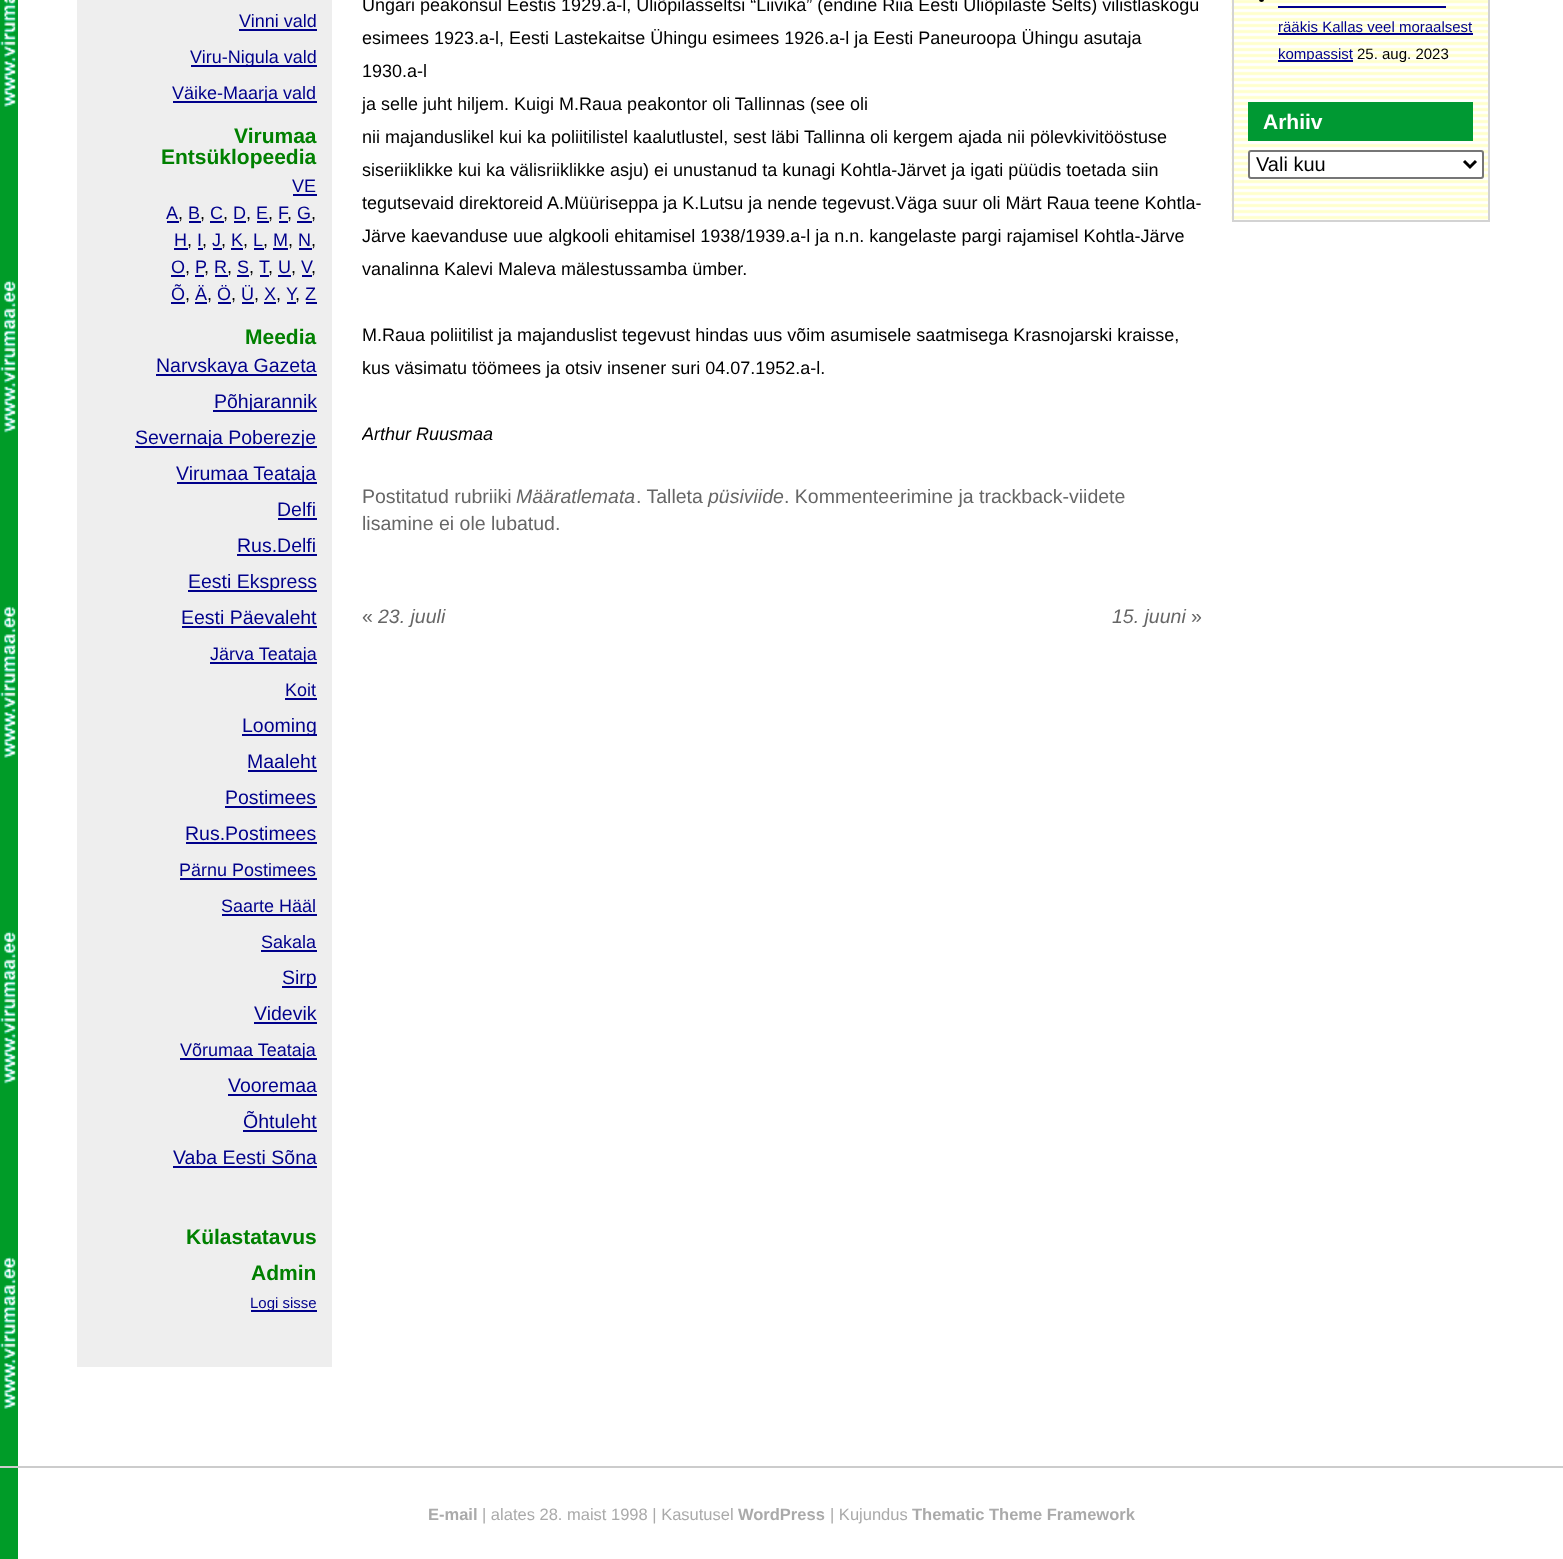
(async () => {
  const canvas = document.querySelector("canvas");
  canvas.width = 1563;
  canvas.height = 1559;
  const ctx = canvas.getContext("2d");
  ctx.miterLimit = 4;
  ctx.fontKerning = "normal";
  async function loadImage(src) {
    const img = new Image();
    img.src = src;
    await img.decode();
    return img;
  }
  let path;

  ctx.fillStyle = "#ffffff";
  ctx.fillRect(0, 0, 1563, 1559);
  ctx.drawImage(await loadImage("img/1.png"), 0, 0, 18, 1559);
  for (const [x, y, w, h, color] of [
    [77, 0, 255, 1367, "#eeeeee"],
    [239, 29, 78, 2, "#00008b"],
    [191, 65, 126, 2, "#00008b"],
    [173, 101, 144, 2, "#00008b"],
    [293, 194, 24, 2, "#00008b"],
    [167, 221, 12, 2, "#00008b"],
    [189, 221, 12, 2, "#00008b"],
    [210, 221, 14, 2, "#00008b"],
    [234, 221, 12, 2, "#00008b"],
    [257, 221, 12, 2, "#00008b"],
    [279, 221, 9, 2, "#00008b"],
    [297, 221, 15, 2, "#00008b"],
    [174, 248, 14, 2, "#00008b"],
    [198, 248, 5, 2, "#00008b"],
    [213, 248, 9, 2, "#00008b"],
    [231, 248, 12, 2, "#00008b"],
    [254, 248, 10, 2, "#00008b"],
    [273, 248, 15, 2, "#00008b"],
    [299, 248, 13, 2, "#00008b"],
    [171, 275, 14, 2, "#00008b"],
    [195, 275, 9, 2, "#00008b"],
    [215, 275, 13, 2, "#00008b"],
    [237, 275, 12, 2, "#00008b"],
    [260, 275, 9, 2, "#00008b"],
    [278, 275, 13, 2, "#00008b"],
    [302, 275, 10, 2, "#00008b"],
    [171, 302, 14, 2, "#00008b"],
    [195, 302, 12, 2, "#00008b"],
    [218, 302, 13, 2, "#00008b"],
    [242, 302, 12, 2, "#00008b"],
    [264, 302, 12, 2, "#00008b"],
    [287, 302, 9, 2, "#00008b"],
    [306, 302, 11, 2, "#00008b"],
    [156, 374, 161, 2, "#00008b"],
    [213, 410, 104, 2, "#00008b"],
    [135, 446, 182, 2, "#00008b"],
    [177, 482, 140, 2, "#00008b"],
    [278, 518, 39, 2, "#00008b"],
    [237, 554, 80, 2, "#00008b"],
    [188, 590, 129, 2, "#00008b"],
    [182, 626, 135, 2, "#00008b"],
    [210, 662, 107, 2, "#00008b"],
    [285, 698, 32, 2, "#00008b"],
    [242, 734, 75, 2, "#00008b"],
    [248, 770, 69, 2, "#00008b"],
    [225, 806, 92, 2, "#00008b"],
    [186, 842, 131, 2, "#00008b"],
    [180, 878, 137, 2, "#00008b"],
    [222, 914, 95, 2, "#00008b"],
    [261, 950, 56, 2, "#00008b"],
    [282, 986, 35, 2, "#00008b"],
    [254, 1022, 63, 2, "#00008b"],
    [180, 1058, 137, 2, "#00008b"],
    [228, 1094, 89, 2, "#00008b"],
    [243, 1130, 74, 2, "#00008b"],
    [173, 1166, 144, 2, "#00008b"],
    [251, 1310, 66, 2, "#00008b"],
  ]) {
    ctx.fillStyle = color;
    ctx.fillRect(x, y, w, h);
  }
  ctx.drawImage(await loadImage("img/2.png"), 1231, 0, 257, 222);
  ctx.strokeStyle = "#d3d3d3";
  ctx.lineWidth = 2;
  ctx.strokeRect(1233, -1, 256, 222);
  ctx.fillStyle = "#000000";
  ctx.beginPath();
  ctx.arc(1261.5, -0.5, 2.5, 0, Math.PI * 2);
  ctx.fill();
  for (const [x, y, w, h, color] of [
    [1278, 6, 168, 2, "#00008b"],
    [1278, 33, 195, 2, "#00008b"],
    [1278, 60, 75, 2, "#00008b"],
    [1248, 102, 225, 39, "#009933"],
  ]) {
    ctx.fillStyle = color;
    ctx.fillRect(x, y, w, h);
  }
  ctx.fillStyle = "#ffffff";
  ctx.beginPath();
  ctx.roundRect(1249, 151, 234, 27, 2);
  ctx.fill();
  ctx.strokeStyle = "#767676";
  ctx.stroke();
  path = new Path2D("M1464 161L1470 167L1476 161");
  ctx.strokeStyle = "#000000";
  ctx.lineWidth = 3;
  ctx.stroke(path);
  ctx.fillStyle = "#cccccc";
  ctx.fillRect(0, 1466, 1563, 2);
  ctx.font = "18px Liberation Sans";
  ctx.fillStyle = "#00008b";
  for (const [text, x, y] of [
    ["Vinni vald", 239, 27],
    ["Viru-Nigula vald", 190, 63],
    ["Väike-Maarja vald", 172, 99],
  ]) {
    ctx.fillText(text, x, y);
  }
  ctx.font = "bold 21px Liberation Sans";
  ctx.fillStyle = "#008000";
  ctx.fillText("Virumaa", 234, 143);
  ctx.fillText("Entsüklopeedia", 161, 164);
  ctx.font = "18px Liberation Sans";
  ctx.fillStyle = "#00008b";
  ctx.fillText("VE", 292, 192);
  ctx.fillText("A", 166, 219);
  ctx.fillStyle = "#000000";
  ctx.fillText(",", 178, 219);
  ctx.fillStyle = "#00008b";
  ctx.fillText("B", 188, 219);
  ctx.fillStyle = "#000000";
  ctx.fillText(",", 200, 219);
  ctx.fillStyle = "#00008b";
  ctx.fillText("C", 210, 219);
  ctx.fillStyle = "#000000";
  ctx.fillText(",", 223, 219);
  ctx.fillStyle = "#00008b";
  ctx.fillText("D", 233, 219);
  ctx.fillStyle = "#000000";
  ctx.fillText(",", 246, 219);
  ctx.fillStyle = "#00008b";
  ctx.fillText("E", 256, 219);
  ctx.fillStyle = "#000000";
  ctx.fillText(",", 268, 219);
  ctx.fillStyle = "#00008b";
  ctx.fillText("F", 278, 219);
  ctx.fillStyle = "#000000";
  ctx.fillText(",", 287, 219);
  ctx.fillStyle = "#00008b";
  ctx.fillText("G", 297, 219);
  ctx.fillStyle = "#000000";
  ctx.fillText(",", 311, 219);
  ctx.fillStyle = "#00008b";
  for (const [text, x, y] of [
    ["H", 174, 246],
    ["I", 197, 246],
    ["J", 212, 246],
    ["K", 231, 246],
    ["L", 253, 246],
    ["M", 273, 246],
    ["N", 298, 246],
  ]) {
    ctx.fillText(text, x, y);
  }
  ctx.fillStyle = "#000000";
  for (const [text, x, y] of [
    [",", 187, 246],
    [",", 202, 246],
    [",", 221, 246],
    [",", 243, 246],
    [",", 263, 246],
    [",", 288, 246],
    [",", 311, 246],
  ]) {
    ctx.fillText(text, x, y);
  }
  ctx.fillStyle = "#00008b";
  for (const [text, x, y] of [
    ["O", 171, 273],
    ["P", 195, 273],
    ["R", 214, 273],
    ["S", 237, 273],
    ["T", 259, 273],
    ["U", 278, 273],
    ["V", 301, 273],
  ]) {
    ctx.fillText(text, x, y);
  }
  ctx.fillStyle = "#000000";
  for (const [text, x, y] of [
    [",", 185, 273],
    [",", 204, 273],
    [",", 227, 273],
    [",", 249, 273],
    [",", 268, 273],
    [",", 291, 273],
    [",", 311, 273],
  ]) {
    ctx.fillText(text, x, y);
  }
  ctx.fillStyle = "#00008b";
  for (const [text, x, y] of [
    ["Õ", 171, 300],
    ["Ä", 195, 300],
    ["Ö", 217, 300],
    ["Ü", 241, 300],
    ["X", 264, 300],
    ["Y", 286, 300],
    ["Z", 305, 300],
  ]) {
    ctx.fillText(text, x, y);
  }
  ctx.fillStyle = "#000000";
  for (const [text, x, y] of [
    [",", 185, 300],
    [",", 207, 300],
    [",", 231, 300],
    [",", 254, 300],
    [",", 276, 300],
    [",", 295, 300],
  ]) {
    ctx.fillText(text, x, y);
  }
  ctx.font = "bold 21px Liberation Sans";
  ctx.fillStyle = "#008000";
  ctx.fillText("Meedia", 245, 344);
  ctx.font = "19.5px Liberation Sans";
  ctx.fillStyle = "#00008b";
  for (const [text, x, y] of [
    ["Narvskaya Gazeta", 156, 372],
    ["Põhjarannik", 214, 408],
    ["Severnaja Poberezje", 135, 444],
    ["Virumaa Teataja", 176, 480],
    ["Delfi", 277, 516],
    ["Rus.Delfi", 237, 552],
    ["Eesti Ekspress", 188, 588],
    ["Eesti Päevaleht", 181, 624],
  ]) {
    ctx.fillText(text, x, y);
  }
  ctx.font = "18px Liberation Sans";
  ctx.fillText("Järva Teataja", 210, 660);
  ctx.fillText("Koit", 285, 696);
  ctx.font = "19.5px Liberation Sans";
  for (const [text, x, y] of [
    ["Looming", 242, 732],
    ["Maaleht", 247, 768],
    ["Postimees", 225, 804],
    ["Rus.Postimees", 185, 840],
  ]) {
    ctx.fillText(text, x, y);
  }
  ctx.font = "18px Liberation Sans";
  for (const [text, x, y] of [
    ["Pärnu Postimees", 179, 876],
    ["Saarte Hääl", 221, 912],
    ["Sakala", 261, 948],
  ]) {
    ctx.fillText(text, x, y);
  }
  ctx.font = "19.5px Liberation Sans";
  ctx.fillText("Sirp", 282, 984);
  ctx.fillText("Videvik", 254, 1020);
  ctx.font = "18px Liberation Sans";
  ctx.fillText("Võrumaa Teataja", 180, 1056);
  ctx.font = "19.5px Liberation Sans";
  for (const [text, x, y] of [
    ["Vooremaa", 228, 1092],
    ["Õhtuleht", 243, 1128],
    ["Vaba Eesti Sõna", 173, 1164],
  ]) {
    ctx.fillText(text, x, y);
  }
  ctx.font = "bold 21px Liberation Sans";
  ctx.fillStyle = "#008000";
  ctx.fillText("Külastatavus", 186, 1244);
  ctx.fillText("Admin", 251, 1280);
  ctx.font = "15px Liberation Sans";
  ctx.fillStyle = "#00008b";
  ctx.fillText("Logi sisse", 250, 1308);
  ctx.font = "18px Liberation Sans";
  ctx.fillStyle = "#000000";
  for (const [text, x, y] of [
    ["Ungari peakonsul Eestis 1929.a-l, Üliõpilasseltsi “Liivika” (endine Riia Eesti Üliõpilaste Selts) vilistlaskogu", 362, 11],
    ["esimees 1923.a-l, Eesti Lastekaitse Ühingu esimees 1926.a-l ja Eesti Paneuroopa Ühingu asutaja", 362, 44],
    ["1930.a-l", 362, 77],
    ["ja selle juht hiljem. Kuigi M.Raua peakontor oli Tallinnas (see oli", 362, 110],
    ["nii majanduslikel kui ka poliitilistel kaalutlustel, sest läbi Tallinna oli kergem ajada nii pölevkivitööstuse", 362, 143],
    ["siseriiklikke kui ka välisriiklikke asju) ei unustanud ta kunagi Kohtla-Järvet ja igati püüdis toetada siin", 362, 176],
    ["tegutsevaid direktoreid A.Müüriseppa ja K.Lutsu ja nende tegevust.Väga suur oli Märt Raua teene Kohtla-", 362, 209],
    ["Järve kaevanduse uue algkooli ehitamisel 1938/1939.a-l ja n.n. kangelaste pargi rajamisel Kohtla-Järve", 362, 242],
    ["vanalinna Kalevi Maleva mälestussamba ümber.", 362, 275],
    ["M.Raua poliitilist ja majanduslist tegevust hindas uus võim asumisele saatmisega Krasnojarski kraisse,", 362, 341],
    ["kus väsimatu töömees ja otsiv insener suri 04.07.1952.a-l.", 362, 374],
  ]) {
    ctx.fillText(text, x, y);
  }
  ctx.save();
  ctx.beginPath();
  ctx.rect(362, 0, 840, 696);
  ctx.clip();
  ctx.font = "italic 18px Liberation Sans";
  ctx.fillText("Arthur Ruusmaa", 362, 440);
  ctx.restore();
  ctx.font = "19.5px Liberation Sans";
  ctx.fillStyle = "#666666";
  ctx.fillText("Postitatud rubriiki", 362, 503);
  ctx.font = "italic 19.5px Liberation Sans";
  ctx.fillText("Määratlemata", 516, 503);
  ctx.font = "19.5px Liberation Sans";
  ctx.fillText(". Talleta", 636, 503);
  ctx.font = "italic 19.5px Liberation Sans";
  ctx.fillText("püsiviide", 708, 503);
  ctx.font = "19.5px Liberation Sans";
  for (const [text, x, y] of [
    [". Kommenteerimine ja trackback-viidete", 784, 503],
    ["lisamine ei ole lubatud.", 362, 530],
    ["«", 362, 623],
  ]) {
    ctx.fillText(text, x, y);
  }
  ctx.font = "italic 19.5px Liberation Sans";
  ctx.fillText("23. juuli", 378, 623);
  ctx.fillText("15. juuni", 1112, 623);
  ctx.font = "19.5px Liberation Sans";
  ctx.fillText("»", 1191, 623);
  ctx.font = "15px Liberation Sans";
  ctx.fillStyle = "#00008b";
  ctx.fillText("rääkis Kallas veel moraalsest", 1278, 32);
  ctx.fillText("kompassist", 1278, 59);
  ctx.fillStyle = "#000000";
  ctx.fillText("25. aug. 2023", 1357, 59);
  ctx.font = "bold 21px Liberation Sans";
  ctx.fillStyle = "#ffffff";
  ctx.fillText("Arhiiv", 1263, 129);
  ctx.font = "20px Liberation Sans";
  ctx.fillStyle = "#000000";
  ctx.fillText("Vali kuu", 1256, 171);
  ctx.font = "bold 16.5px Liberation Sans";
  ctx.fillStyle = "#aaaaaa";
  ctx.fillText("E-mail", 428, 1520);
  ctx.font = "16.5px Liberation Sans";
  ctx.fillText("| alates 28. maist 1998 | Kasutusel", 482, 1520);
  ctx.font = "bold 16.5px Liberation Sans";
  ctx.fillText("WordPress", 738, 1520);
  ctx.font = "16.5px Liberation Sans";
  ctx.fillText("| Kujundus", 830, 1520);
  ctx.font = "bold 16.5px Liberation Sans";
  ctx.fillText("Thematic Theme Framework", 912, 1520);
})();
